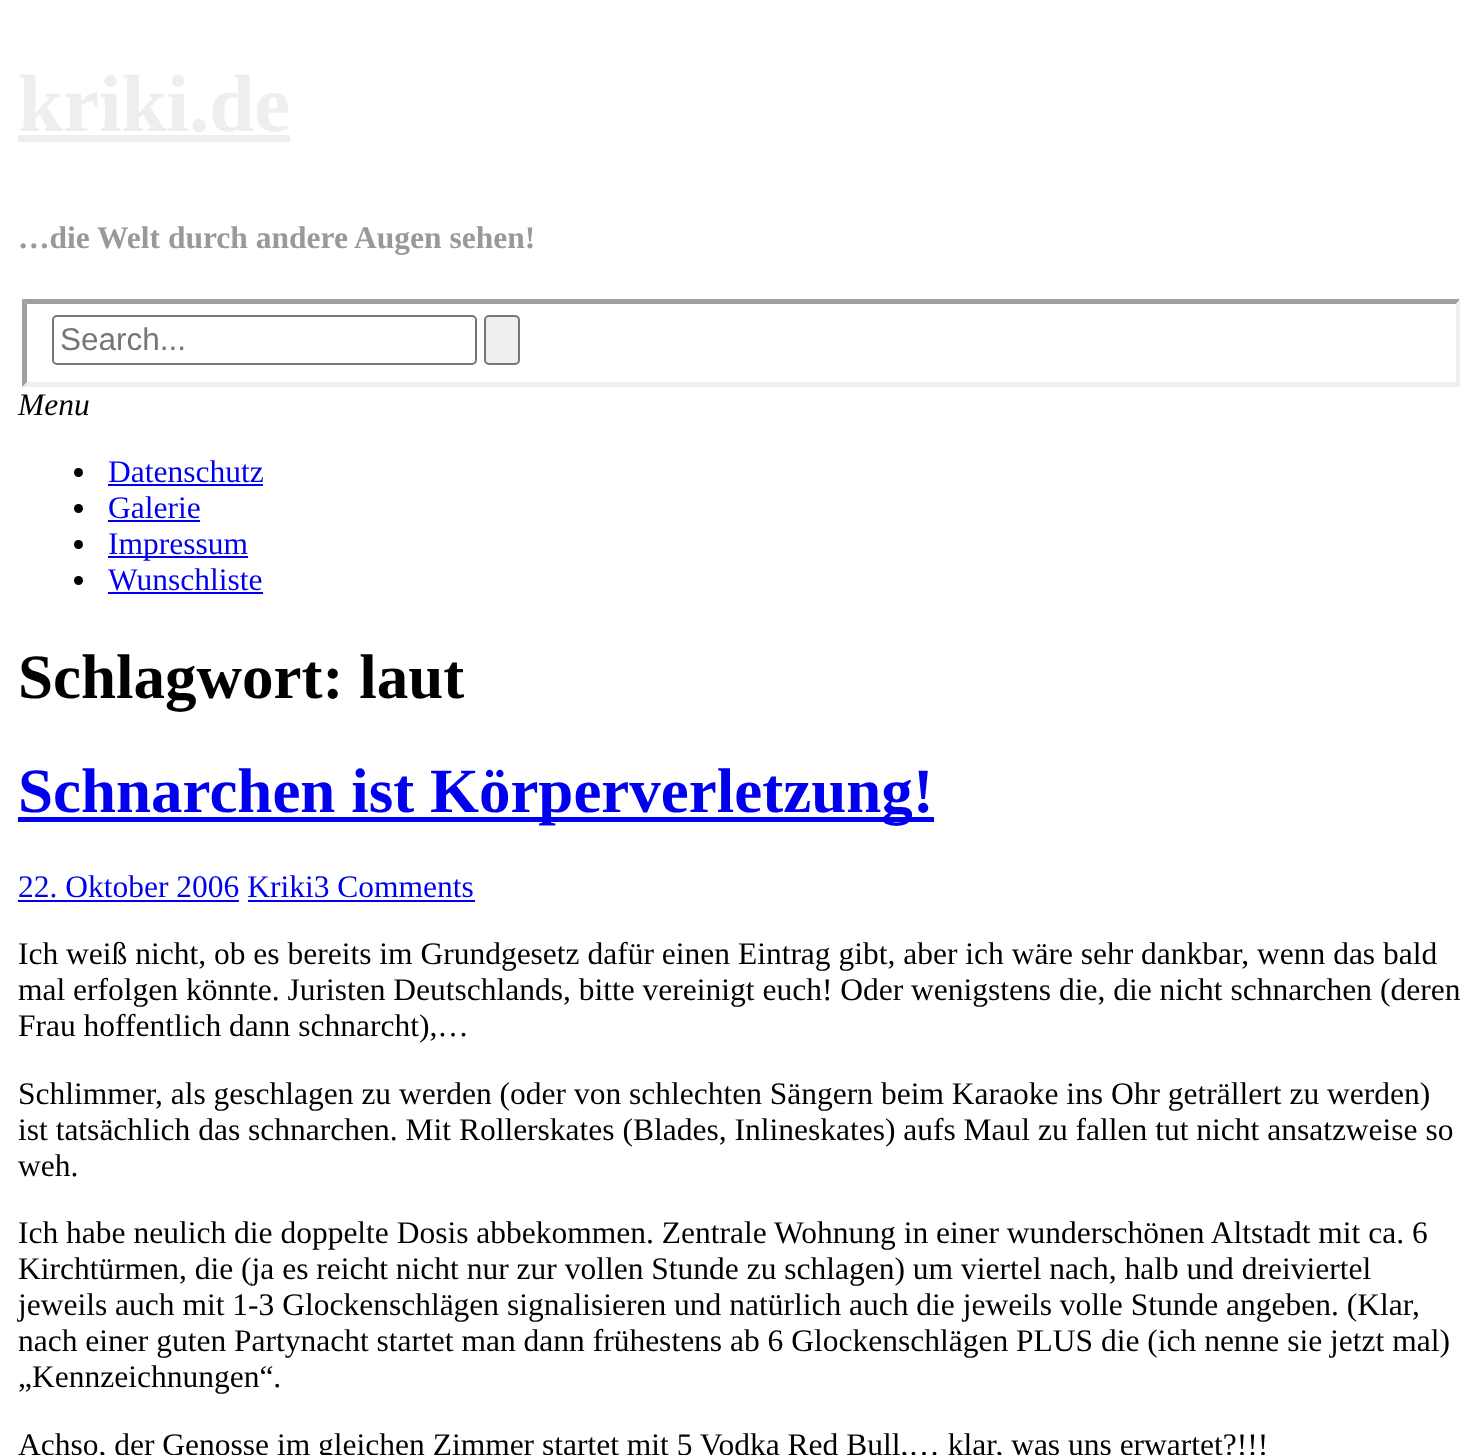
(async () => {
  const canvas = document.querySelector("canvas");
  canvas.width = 1482;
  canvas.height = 1455;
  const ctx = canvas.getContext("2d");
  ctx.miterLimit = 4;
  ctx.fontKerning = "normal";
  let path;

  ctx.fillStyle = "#ffffff";
  ctx.fillRect(0, 0, 1482, 1455);
  ctx.fillStyle = "#eeeeee";
  ctx.fillRect(18, 135, 272, 7);
  ctx.fillStyle = "#9f9f9f";
  path = new Path2D("M22 299H1460L1456 304H27Z");
  ctx.fill(path);
  ctx.fillStyle = "#efefef";
  path = new Path2D("M1460 299V387L1456 382V304Z");
  ctx.fill(path);
  path = new Path2D("M1460 387H22L27 382H1456Z");
  ctx.fill(path);
  ctx.fillStyle = "#9f9f9f";
  path = new Path2D("M22 387V299L27 304V382Z");
  ctx.fill(path);
  ctx.beginPath();
  ctx.roundRect(53, 316, 423, 48, 4);
  ctx.strokeStyle = "#767676";
  ctx.lineWidth = 2;
  ctx.stroke();
  ctx.fillStyle = "#efefef";
  ctx.beginPath();
  ctx.roundRect(485, 316, 34, 48, 4);
  ctx.fill();
  ctx.stroke();
  ctx.fillStyle = "#000000";
  ctx.beginPath();
  ctx.arc(78.5, 472.5, 4.5, 0, Math.PI * 2);
  ctx.fill();
  ctx.fillStyle = "#0000ee";
  ctx.fillRect(108, 484, 155, 2);
  ctx.fillStyle = "#000000";
  ctx.beginPath();
  ctx.arc(78.5, 508.5, 4.5, 0, Math.PI * 2);
  ctx.fill();
  ctx.fillStyle = "#0000ee";
  ctx.fillRect(108, 520, 92, 2);
  ctx.fillStyle = "#000000";
  ctx.beginPath();
  ctx.arc(78.5, 544.5, 4.5, 0, Math.PI * 2);
  ctx.fill();
  ctx.fillStyle = "#0000ee";
  ctx.fillRect(108, 556, 140, 2);
  ctx.fillStyle = "#000000";
  ctx.beginPath();
  ctx.arc(78.5, 580.5, 4.5, 0, Math.PI * 2);
  ctx.fill();
  for (const [x, y, w, h, color] of [
    [108, 592, 155, 2, "#0000ee"],
    [18, 817, 916, 5, "#0000ee"],
    [18, 900, 221, 2, "#0000ee"],
    [248, 900, 227, 2, "#0000ee"],
  ]) {
    ctx.fillStyle = color;
    ctx.fillRect(x, y, w, h);
  }
  ctx.font = "bold 81px Liberation Serif";
  ctx.fillStyle = "#eeeeee";
  ctx.fillText("kriki.de", 18, 131);
  ctx.font = "bold 31.5px Liberation Serif";
  ctx.fillStyle = "#999999";
  ctx.fillText("…die Welt durch andere Augen sehen!", 18, 248);
  ctx.font = "31.5px Liberation Sans";
  ctx.fillStyle = "#757575";
  ctx.fillText("Search...", 60, 350);
  ctx.font = "italic 31.5px Liberation Serif";
  ctx.fillStyle = "#000000";
  ctx.fillText("Menu", 18, 415);
  ctx.font = "31.5px Liberation Serif";
  ctx.fillStyle = "#0000ee";
  for (const [text, x, y] of [
    ["Datenschutz", 108, 482],
    ["Galerie", 108, 518],
    ["Impressum", 108, 554],
    ["Wunschliste", 108, 590],
  ]) {
    ctx.fillText(text, x, y);
  }
  ctx.font = "bold 63px Liberation Serif";
  ctx.fillStyle = "#000000";
  ctx.fillText("Schlagwort: laut", 18, 698);
  ctx.fillStyle = "#0000ee";
  ctx.fillText("Schnarchen ist Körperverletzung!", 18, 812);
  ctx.font = "31.5px Liberation Serif";
  ctx.fillText("22. Oktober 2006 Kriki3 Comments", 18, 897);
  ctx.fillStyle = "#000000";
  for (const [text, x, y] of [
    ["Ich weiß nicht, ob es bereits im Grundgesetz dafür einen Eintrag gibt, aber ich wäre sehr dankbar, wenn das bald", 18, 964],
    ["mal erfolgen könnte. Juristen Deutschlands, bitte vereinigt euch! Oder wenigstens die, die nicht schnarchen (deren", 18, 1000],
    ["Frau hoffentlich dann schnarcht),…", 18, 1036],
    ["Schlimmer, als geschlagen zu werden (oder von schlechten Sängern beim Karaoke ins Ohr geträllert zu werden)", 18, 1104],
    ["ist tatsächlich das schnarchen. Mit Rollerskates (Blades, Inlineskates) aufs Maul zu fallen tut nicht ansatzweise so", 18, 1140],
    ["weh.", 18, 1176],
    ["Ich habe neulich die doppelte Dosis abbekommen. Zentrale Wohnung in einer wunderschönen Altstadt mit ca. 6", 18, 1243],
    ["Kirchtürmen, die (ja es reicht nicht nur zur vollen Stunde zu schlagen) um viertel nach, halb und dreiviertel", 18, 1279],
    ["jeweils auch mit 1-3 Glockenschlägen signalisieren und natürlich auch die jeweils volle Stunde angeben. (Klar,", 18, 1315],
    ["nach einer guten Partynacht startet man dann frühestens ab 6 Glockenschlägen PLUS die (ich nenne sie jetzt mal)", 18, 1351],
    ["„Kennzeichnungen“.", 18, 1387],
    ["Achso, der Genosse im gleichen Zimmer startet mit 5 Vodka Red Bull,… klar, was uns erwartet?!!!", 18, 1455],
  ]) {
    ctx.fillText(text, x, y);
  }
})();
